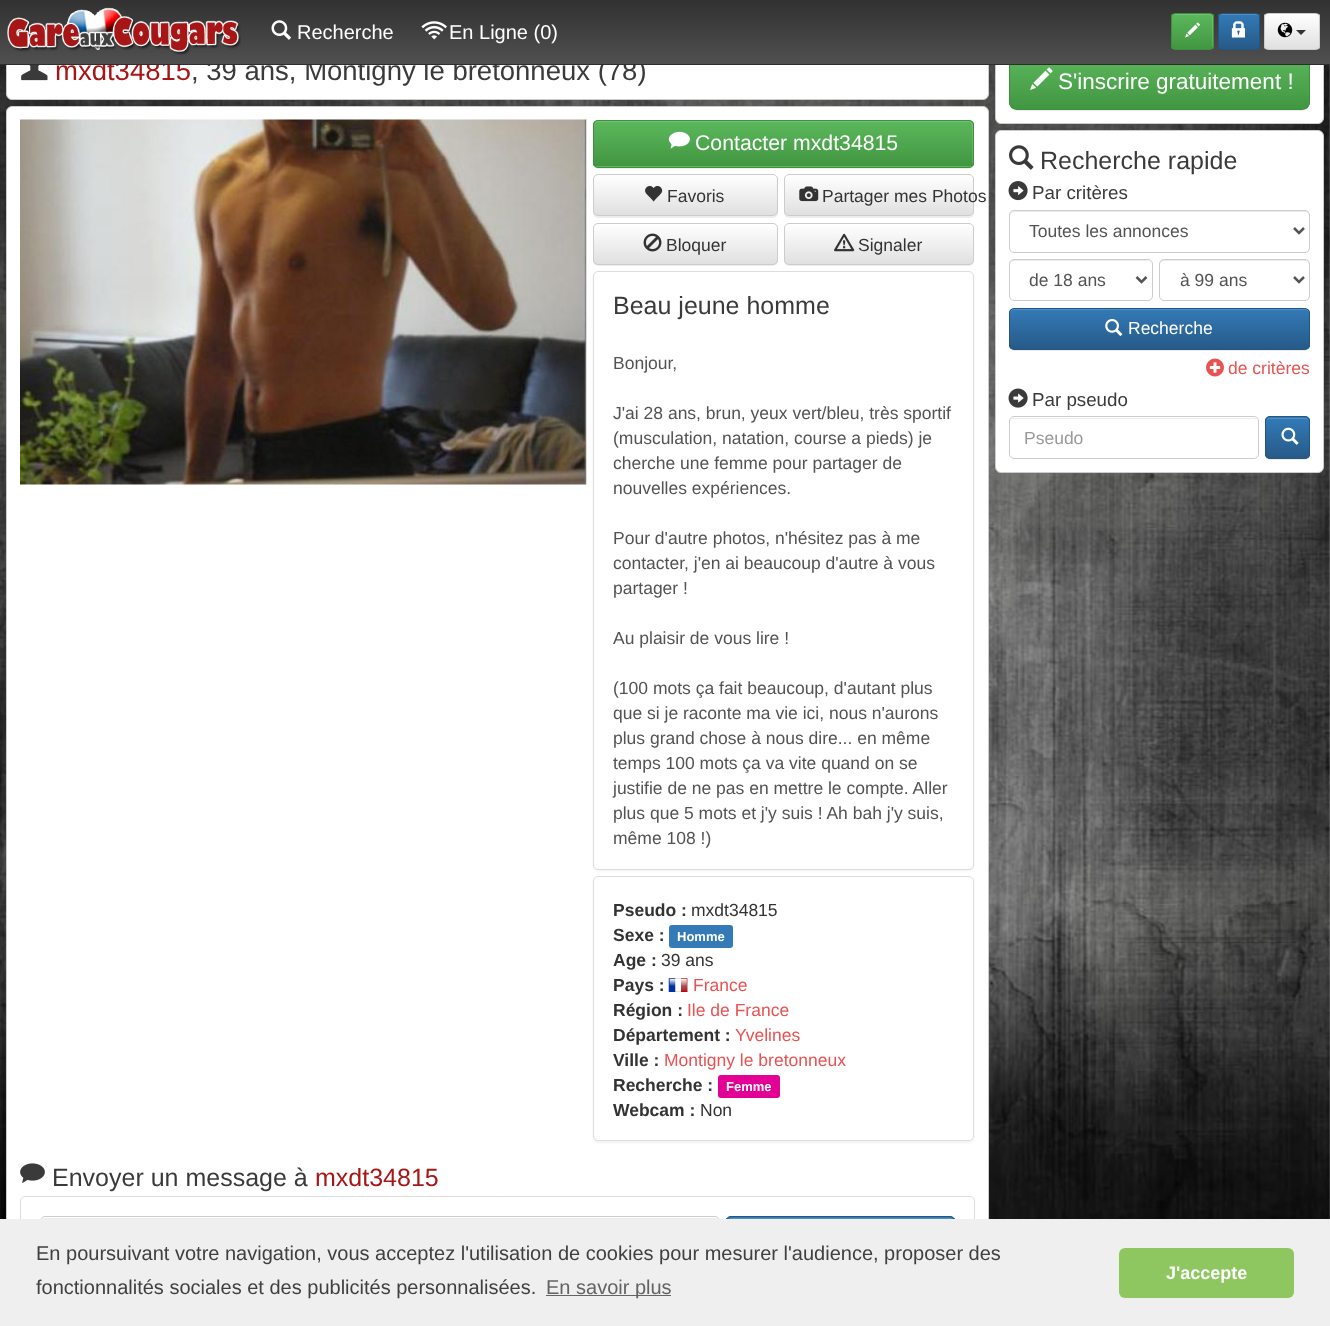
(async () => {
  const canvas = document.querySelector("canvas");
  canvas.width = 1330;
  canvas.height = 1326;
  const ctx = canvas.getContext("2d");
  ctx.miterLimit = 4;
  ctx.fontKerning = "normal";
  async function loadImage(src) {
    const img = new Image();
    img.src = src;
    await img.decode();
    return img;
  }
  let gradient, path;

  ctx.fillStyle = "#ffffff";
  ctx.fillRect(0, 0, 1330, 1326);
  ctx.drawImage(await loadImage("img/1.png"), 0, 65, 1330, 1154);
  ctx.beginPath();
  ctx.roundRect(6.5, 39.5, 982, 60, 5.5);
  ctx.fill();
  ctx.strokeStyle = "#cccccc";
  ctx.stroke();
  ctx.drawImage(await loadImage("img/8.png"), 21, 65, 27, 16);
  ctx.beginPath();
  ctx.roundRect(6.5, 106.5, 982, 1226, 5.5);
  ctx.fill();
  ctx.stroke();
  ctx.drawImage(await loadImage("img/9.png"), 20, 119, 567, 366);
  ctx.fillStyle = "rgba(0, 0, 0, 0.07)";
  ctx.filter = "blur(0.5px)";
  ctx.beginPath();
  ctx.roundRect(593, 121, 381, 48, 5);
  ctx.fill();
  ctx.filter = "none";
  ctx.fillStyle = "#5cb85c";
  ctx.beginPath();
  ctx.roundRect(593, 120, 381, 48, 5);
  ctx.fill();
  ctx.save();
  ctx.beginPath();
  ctx.roundRect(593, 120, 381, 48, 5);
  ctx.clip();
  gradient = ctx.createLinearGradient(783, 121, 783, 166);
  gradient.addColorStop(0, "#5cb85c");
  gradient.addColorStop(1, "#419641");
  ctx.fillStyle = gradient;
  ctx.fillRect(593, 121, 381, 45);
  ctx.restore();
  ctx.fillStyle = "rgba(255, 255, 255, 0.15)";
  path = new Path2D("M598 122H969C971 122 972 124 972 126V165C973 164 973 163 973 162V125C973 123 971 121 969 121H598C596 121 594 123 594 125V126C594 124 595 122 598 122Z");
  ctx.fill(path);
  ctx.beginPath();
  ctx.roundRect(593.5, 120.5, 380, 47, 4.5);
  ctx.strokeStyle = "#3e8f3e";
  ctx.stroke();
  ctx.drawImage(await loadImage("img/10.png"), 668, 131, 22, 18);
  ctx.fillStyle = "rgba(0, 0, 0, 0.07)";
  ctx.filter = "blur(0.5px)";
  ctx.beginPath();
  ctx.roundRect(593, 175, 185, 43, 5);
  ctx.fill();
  ctx.filter = "none";
  ctx.save();
  ctx.beginPath();
  ctx.roundRect(593, 174, 185, 42, 5);
  ctx.clip();
  gradient = ctx.createLinearGradient(685, 175, 685, 215);
  gradient.addColorStop(0, "#ffffff");
  gradient.addColorStop(1, "#e0e0e0");
  ctx.fillStyle = gradient;
  ctx.fillRect(593, 175, 185, 40);
  ctx.restore();
  ctx.beginPath();
  ctx.roundRect(593.5, 174.5, 184, 41, 4.5);
  ctx.strokeStyle = "#cccccc";
  ctx.stroke();
  ctx.drawImage(await loadImage("img/11.png"), 645, 185, 18, 17);
  ctx.filter = "blur(0.5px)";
  ctx.beginPath();
  ctx.roundRect(784, 175, 190, 43, 5);
  ctx.fill();
  ctx.filter = "none";
  ctx.save();
  ctx.beginPath();
  ctx.roundRect(784, 174, 190, 42, 5);
  ctx.clip();
  gradient = ctx.createLinearGradient(879, 175, 879, 215);
  gradient.addColorStop(0, "#ffffff");
  gradient.addColorStop(1, "#e0e0e0");
  ctx.fillStyle = gradient;
  ctx.fillRect(784, 175, 190, 40);
  ctx.restore();
  ctx.fillStyle = "rgba(255, 255, 255, 0.15)";
  path = new Path2D("M789 176H969C974 176 972 189 972 191V214C973 213 973 212 973 211V179C973 177 971 175 969 175H789C787 175 785 177 785 179V180C785 178 787 176 789 176Z");
  ctx.fill(path);
  ctx.beginPath();
  ctx.roundRect(784.5, 174.5, 189, 41, 4.5);
  ctx.stroke();
  ctx.drawImage(await loadImage("img/12.png"), 799, 186, 20, 16);
  ctx.fillStyle = "rgba(0, 0, 0, 0.07)";
  ctx.filter = "blur(0.5px)";
  ctx.beginPath();
  ctx.roundRect(593, 224, 185, 42, 5);
  ctx.fill();
  ctx.filter = "none";
  ctx.save();
  ctx.beginPath();
  ctx.roundRect(593, 223, 185, 42, 5);
  ctx.clip();
  gradient = ctx.createLinearGradient(685, 224, 685, 264);
  gradient.addColorStop(0, "#ffffff");
  gradient.addColorStop(1, "#e0e0e0");
  ctx.fillStyle = gradient;
  ctx.fillRect(593, 224, 185, 40);
  ctx.restore();
  ctx.beginPath();
  ctx.roundRect(593.5, 223.5, 184, 41, 4.5);
  ctx.stroke();
  ctx.drawImage(await loadImage("img/13.png"), 643, 233, 19, 19);
  ctx.filter = "blur(0.5px)";
  ctx.beginPath();
  ctx.roundRect(784, 224, 190, 42, 5);
  ctx.fill();
  ctx.filter = "none";
  ctx.save();
  ctx.beginPath();
  ctx.roundRect(784, 223, 190, 42, 5);
  ctx.clip();
  gradient = ctx.createLinearGradient(879, 224, 879, 264);
  gradient.addColorStop(0, "#ffffff");
  gradient.addColorStop(1, "#e0e0e0");
  ctx.fillStyle = gradient;
  ctx.fillRect(784, 224, 190, 40);
  ctx.restore();
  ctx.fillStyle = "rgba(255, 255, 255, 0.15)";
  path = new Path2D("M789 225H969C974 225 972 238 972 240V263C972 262 973 261 973 260V228C973 226 971 224 969 224H789C787 224 785 226 785 228V229C785 227 787 225 789 225Z");
  ctx.fill(path);
  ctx.beginPath();
  ctx.roundRect(784.5, 223.5, 189, 41, 4.5);
  ctx.stroke();
  ctx.drawImage(await loadImage("img/14.png"), 834, 233, 21, 19);
  ctx.fillStyle = "rgba(0, 0, 0, 0.05)";
  ctx.filter = "blur(1px)";
  ctx.beginPath();
  ctx.roundRect(593, 273, 381, 598, 5);
  ctx.fill();
  ctx.filter = "none";
  ctx.fillStyle = "#ffffff";
  ctx.beginPath();
  ctx.roundRect(593.5, 271.5, 380, 598, 4.5);
  ctx.fill();
  ctx.strokeStyle = "#dddddd";
  ctx.stroke();
  ctx.fillStyle = "rgba(0, 0, 0, 0.05)";
  ctx.filter = "blur(1px)";
  ctx.beginPath();
  ctx.roundRect(593, 878, 381, 265, 5);
  ctx.fill();
  ctx.filter = "none";
  ctx.fillStyle = "#ffffff";
  ctx.beginPath();
  ctx.roundRect(593.5, 876.5, 380, 264, 4.5);
  ctx.fill();
  ctx.stroke();
  ctx.fillStyle = "#337ab7";
  ctx.beginPath();
  ctx.roundRect(669, 925, 64, 23, 3);
  ctx.fill();
  ctx.drawImage(await loadImage("img/15.png"), 668, 978, 20, 14);
  ctx.fillStyle = "#e20095";
  ctx.beginPath();
  ctx.roundRect(718, 1075, 62, 23, 3);
  ctx.fill();
  ctx.drawImage(await loadImage("img/16.png"), 20, 1163, 25, 20);
  ctx.beginPath();
  ctx.roundRect(20.5, 1196.5, 954, 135, 4.5);
  ctx.stroke();
  ctx.fillStyle = "#ececec";
  path = new Path2D("M45 1219H715C717 1219 719 1220 719 1222C719 1220 717 1218 715 1218H45C43 1218 41 1220 41 1222C41 1220 43 1219 45 1219Z");
  ctx.fill(path);
  ctx.beginPath();
  ctx.roundRect(40.5, 1216.5, 679, 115, 4.5);
  ctx.strokeStyle = "#cccccc";
  ctx.stroke();
  ctx.fillStyle = "#337ab7";
  ctx.beginPath();
  ctx.roundRect(726, 1216, 229, 75, 5);
  ctx.fill();
  gradient = ctx.createLinearGradient(841, 1218, 841, 1290);
  gradient.addColorStop(0, "#337ab7");
  gradient.addColorStop(1, "#265a88");
  ctx.fillStyle = gradient;
  ctx.fillRect(726, 1218, 229, 1);
  ctx.fillStyle = "#528ec2";
  path = new Path2D("M731 1219H950C952 1219 954 1220 954 1222C954 1220 952 1218 950 1218H732C731 1218 729 1219 729 1220Z");
  ctx.fill(path);
  ctx.beginPath();
  ctx.roundRect(726.5, 1216.5, 228, 74, 4.5);
  ctx.strokeStyle = "#245580";
  ctx.stroke();
  ctx.fillStyle = "#ffffff";
  ctx.beginPath();
  ctx.roundRect(995.5, 39.5, 328, 84, 5.5);
  ctx.fill();
  ctx.strokeStyle = "#cccccc";
  ctx.stroke();
  ctx.fillStyle = "rgba(0, 0, 0, 0.07)";
  ctx.filter = "blur(0.5px)";
  ctx.beginPath();
  ctx.roundRect(1009, 54, 301, 57, 8);
  ctx.fill();
  ctx.filter = "none";
  ctx.save();
  ctx.beginPath();
  ctx.roundRect(1009, 53, 301, 57, 8);
  ctx.clip();
  gradient = ctx.createLinearGradient(1159, 54, 1159, 109);
  gradient.addColorStop(0, "#5cb85c");
  gradient.addColorStop(1, "#419641");
  ctx.fillStyle = gradient;
  ctx.fillRect(1009, 65, 301, 44);
  ctx.restore();
  ctx.beginPath();
  ctx.roundRect(1009.5, 53.5, 300, 56, 7.5);
  ctx.strokeStyle = "#3e8f3e";
  ctx.stroke();
  ctx.drawImage(await loadImage("img/17.png"), 1030, 67, 23, 23);
  ctx.fillStyle = "#ffffff";
  ctx.beginPath();
  ctx.roundRect(995.5, 130.5, 328, 342, 5.5);
  ctx.fill();
  ctx.strokeStyle = "#cccccc";
  ctx.stroke();
  ctx.drawImage(await loadImage("img/18.png"), 1009, 145, 25, 25);
  ctx.drawImage(await loadImage("img/19.png"), 1008, 181, 20, 20);
  ctx.fillStyle = "#ececec";
  path = new Path2D("M1014 212H1305C1307 212 1309 214 1309 216C1309 213 1308 211 1305 211H1014C1011 211 1010 213 1010 216C1010 214 1012 212 1014 212Z");
  ctx.fill(path);
  ctx.beginPath();
  ctx.roundRect(1009.5, 210.5, 300, 42, 4.5);
  ctx.stroke();
  path = new Path2D("M1294 228L1299 233L1304 228");
  ctx.strokeStyle = "#555555";
  ctx.lineWidth = 2.5;
  ctx.stroke(path);
  path = new Path2D("M1014 261H1148C1150 261 1151 263 1151 265V264C1151 262 1149 260 1147 260H1014C1012 260 1010 262 1010 264V265C1010 263 1012 261 1014 261Z");
  ctx.fill(path);
  ctx.beginPath();
  ctx.roundRect(1009.5, 259.5, 143, 41, 4.5);
  ctx.strokeStyle = "#cccccc";
  ctx.lineWidth = 1;
  ctx.stroke();
  path = new Path2D("M1136.5 277L1141.5 282L1146.5 277");
  ctx.strokeStyle = "#555555";
  ctx.lineWidth = 2.5;
  ctx.stroke(path);
  path = new Path2D("M1164 261H1305C1307 261 1309 263 1309 265C1309 263 1308 261 1306 260H1164C1161 260 1160 262 1160 265C1160 263 1162 261 1164 261Z");
  ctx.fill(path);
  ctx.beginPath();
  ctx.roundRect(1159.5, 259.5, 150, 41, 4.5);
  ctx.strokeStyle = "#cccccc";
  ctx.lineWidth = 1;
  ctx.stroke();
  path = new Path2D("M1294 277L1299 282L1304 277");
  ctx.strokeStyle = "#555555";
  ctx.lineWidth = 2.5;
  ctx.stroke(path);
  ctx.fillStyle = "rgba(0, 0, 0, 0.07)";
  ctx.filter = "blur(0.5px)";
  ctx.beginPath();
  ctx.roundRect(1009, 309, 301, 42, 5);
  ctx.fill();
  ctx.filter = "none";
  ctx.save();
  ctx.beginPath();
  ctx.roundRect(1009, 308, 301, 42, 5);
  ctx.clip();
  gradient = ctx.createLinearGradient(1159, 309, 1159, 349);
  gradient.addColorStop(0, "#337ab7");
  gradient.addColorStop(1, "#265a88");
  ctx.fillStyle = gradient;
  ctx.fillRect(1009, 309, 301, 40);
  ctx.restore();
  ctx.fillStyle = "#528ec1";
  path = new Path2D("M1014 310H1305C1307 310 1309 312 1309 314C1309 311 1308 309 1305 309H1014C1011 309 1010 311 1010 314C1010 312 1012 310 1014 310Z");
  ctx.fill(path);
  ctx.beginPath();
  ctx.roundRect(1009.5, 308.5, 300, 41, 4.5);
  ctx.strokeStyle = "#245580";
  ctx.lineWidth = 1;
  ctx.stroke();
  ctx.drawImage(await loadImage("img/20.png"), 1105, 318, 18, 18);
  ctx.drawImage(await loadImage("img/21.png"), 1206, 358, 18, 19);
  ctx.drawImage(await loadImage("img/22.png"), 1008, 388, 20, 20);
  ctx.fillStyle = "#ececec";
  path = new Path2D("M1014 419H1254C1256 419 1258 420 1258 422C1258 420 1256 418 1254 418H1014C1012 418 1010 420 1010 422C1010 420 1012 419 1014 419Z");
  ctx.fill(path);
  ctx.beginPath();
  ctx.roundRect(1009.5, 416.5, 249, 42, 4.5);
  ctx.strokeStyle = "#cccccc";
  ctx.stroke();
  ctx.fillStyle = "rgba(0, 0, 0, 0.07)";
  ctx.filter = "blur(0.5px)";
  ctx.beginPath();
  ctx.roundRect(1265, 418, 45, 42, 5);
  ctx.fill();
  ctx.filter = "none";
  ctx.fillStyle = "#337ab7";
  ctx.beginPath();
  ctx.roundRect(1265, 416, 45, 43, 5);
  ctx.fill();
  ctx.save();
  ctx.beginPath();
  ctx.roundRect(1265, 416, 45, 43, 5);
  ctx.clip();
  gradient = ctx.createLinearGradient(1288, 418, 1288, 458);
  gradient.addColorStop(0, "#337ab7");
  gradient.addColorStop(1, "#265a88");
  ctx.fillStyle = gradient;
  ctx.fillRect(1265, 418, 45, 40);
  ctx.restore();
  ctx.fillStyle = "#528ec1";
  path = new Path2D("M1270 419H1305C1307 419 1309 420 1309 422C1309 420 1307 418 1305 418H1270C1268 418 1266 420 1266 422C1266 420 1268 419 1270 419Z");
  ctx.fill(path);
  ctx.beginPath();
  ctx.roundRect(1265.5, 416.5, 44, 42, 4.5);
  ctx.strokeStyle = "#245580";
  ctx.stroke();
  ctx.drawImage(await loadImage("img/23.png"), 1281, 427, 18, 18);
  ctx.fillStyle = "#efefef";
  ctx.fillRect(0, 1219, 1330, 107);
  ctx.fillStyle = "#636363";
  ctx.fillRect(546, 1295, 125, 1);
  ctx.fillStyle = "#8ec760";
  ctx.beginPath();
  ctx.roundRect(1119, 1248, 175, 50, 6);
  ctx.fill();
  ctx.font = "27.5px Liberation Sans";
  ctx.fillStyle = "#a61616";
  ctx.fillText("mxdt34815", 55, 80);
  ctx.fillStyle = "#3a3a3a";
  ctx.fillText(", 39 ans, Montigny le bretonneux (78)", 191, 80);
  gradient = ctx.createLinearGradient(665, 0, 665, 64);
  gradient.addColorStop(0, "#313131");
  gradient.addColorStop(1, "#505050");
  ctx.fillStyle = gradient;
  ctx.fillRect(0, 0, 1330, 64);
  ctx.save();
  ctx.beginPath();
  ctx.roundRect(1264, 13, 56, 37, 4);
  ctx.clip();
  gradient = ctx.createLinearGradient(1292, 14, 1292, 49);
  gradient.addColorStop(0, "#ffffff");
  gradient.addColorStop(1, "#e0e0e0");
  ctx.fillStyle = gradient;
  ctx.fillRect(1264, 14, 56, 35);
  ctx.restore();
  ctx.beginPath();
  ctx.roundRect(1264.5, 13.5, 55, 36, 3.5);
  ctx.strokeStyle = "#cccccc";
  ctx.stroke();
  ctx.drawImage(await loadImage("img/7.png"), 1277, 22, 16, 16);
  ctx.fillStyle = "#333333";
  path = new Path2D("M1296 30H1306L1301 35Z");
  ctx.fill(path);
  ctx.save();
  ctx.beginPath();
  ctx.roundRect(1218, 13, 42, 37, 4);
  ctx.clip();
  gradient = ctx.createLinearGradient(1239, 14, 1239, 49);
  gradient.addColorStop(0, "#337ab7");
  gradient.addColorStop(1, "#265a88");
  ctx.fillStyle = gradient;
  ctx.fillRect(1218, 14, 42, 35);
  ctx.restore();
  ctx.fillStyle = "#528ec1";
  path = new Path2D("M1221 15H1256C1258 15 1259 16 1259 18C1259 13 1256 14 1251 14H1227C1222 14 1219 13 1219 18C1219 16 1220 15 1221 15Z");
  ctx.fill(path);
  ctx.beginPath();
  ctx.roundRect(1218.5, 13.5, 41, 36, 3.5);
  ctx.strokeStyle = "#245580";
  ctx.stroke();
  ctx.drawImage(await loadImage("img/6.png"), 1231, 21, 14, 17);
  ctx.save();
  ctx.beginPath();
  ctx.roundRect(1171, 13, 43, 37, 4);
  ctx.clip();
  gradient = ctx.createLinearGradient(1193, 14, 1193, 49);
  gradient.addColorStop(0, "#5cb85c");
  gradient.addColorStop(1, "#419641");
  ctx.fillStyle = gradient;
  ctx.fillRect(1171, 14, 43, 35);
  ctx.restore();
  ctx.fillStyle = "rgba(255, 255, 255, 0.15)";
  path = new Path2D("M1175 15H1204C1207.5 15 1212 13.5 1212 18V48.5C1212.5 48 1213 47.5 1213 46.5V16.5C1213 15 1212 14 1210.5 14H1175.5C1174.5 14 1173.5 14.5 1173 16Z");
  ctx.fill(path);
  ctx.beginPath();
  ctx.roundRect(1171.5, 13.5, 42, 36, 3.5);
  ctx.strokeStyle = "#3e8f3e";
  ctx.stroke();
  ctx.drawImage(await loadImage("img/5.png"), 1185, 22, 15, 16);
  ctx.drawImage(await loadImage("img/4.png"), 421, 21, 26, 19);
  ctx.font = "20px Liberation Sans";
  ctx.fillStyle = "#ffffff";
  ctx.fillText("En Ligne (0)", 449, 39);
  ctx.drawImage(await loadImage("img/3.png"), 271, 20, 20, 20);
  ctx.fillText("Recherche", 297, 39);
  ctx.drawImage(await loadImage("img/2.png"), 7, 7, 234, 48);
  ctx.fillStyle = "#2e2e2e";
  ctx.fillRect(0, 64, 1330, 1);
  ctx.font = "21.25px Liberation Sans";
  ctx.fillStyle = "#ffffff";
  ctx.fillText("Contacter mxdt34815", 695, 150);
  ctx.font = "17.5px Liberation Sans";
  ctx.fillStyle = "#333333";
  for (const [text, x, y] of [
    ["Favoris", 667, 202],
    ["Partager mes Photos", 822, 202],
    ["Bloquer", 666, 251],
    ["Signaler", 858, 251],
  ]) {
    ctx.fillText(text, x, y);
  }
  ctx.font = "25px Liberation Sans";
  ctx.fillStyle = "#3a3a3a";
  ctx.fillText("Beau jeune homme", 613, 314);
  ctx.font = "17.5px Liberation Sans";
  ctx.fillStyle = "#535353";
  for (const [text, x, y] of [
    ["Bonjour,", 613, 369],
    ["J'ai 28 ans, brun, yeux vert/bleu, très sportif", 613, 419],
    ["(musculation, natation, course a pieds) je", 613, 444],
    ["cherche une femme pour partager de", 613, 469],
    ["nouvelles expériences.", 613, 494],
    ["Pour d'autre photos, n'hésitez pas à me", 613, 544],
    ["contacter, j'en ai beaucoup d'autre à vous", 613, 569],
    ["partager !", 613, 594],
    ["Au plaisir de vous lire !", 613, 644],
    ["(100 mots ça fait beaucoup, d'autant plus", 613, 694],
    ["que si je raconte ma vie ici, nous n'aurons", 613, 719],
    ["plus grand chose à nous dire... en même", 613, 744],
    ["temps 100 mots ça va vite quand on se", 613, 769],
    ["justifie de ne pas en mettre le compte. Aller", 613, 794],
    ["plus que 5 mots et j'y suis ! Ah bah j'y suis,", 613, 819],
    ["même 108 !)", 613, 844],
  ]) {
    ctx.fillText(text, x, y);
  }
  ctx.font = "bold 17.5px Liberation Sans";
  ctx.fillStyle = "#333333";
  ctx.fillText("Pseudo :", 613, 916);
  ctx.font = "17.5px Liberation Sans";
  ctx.fillText("mxdt34815", 691, 916);
  ctx.font = "bold 17.5px Liberation Sans";
  ctx.fillText("Sexe :", 613, 941);
  ctx.font = "bold 13px Liberation Sans";
  ctx.fillStyle = "#ffffff";
  ctx.fillText("Homme", 677, 941);
  ctx.font = "bold 17.5px Liberation Sans";
  ctx.fillStyle = "#333333";
  ctx.fillText("Age :", 613, 966);
  ctx.font = "17.5px Liberation Sans";
  ctx.fillText("39 ans", 661, 966);
  ctx.font = "bold 17.5px Liberation Sans";
  ctx.fillText("Pays :", 613, 991);
  ctx.font = "17.5px Liberation Sans";
  ctx.fillStyle = "#e95252";
  ctx.fillText("France", 693, 991);
  ctx.font = "bold 17.5px Liberation Sans";
  ctx.fillStyle = "#333333";
  ctx.fillText("Région :", 613, 1016);
  ctx.font = "17.5px Liberation Sans";
  ctx.fillStyle = "#e95252";
  ctx.fillText("Ile de France", 687, 1016);
  ctx.font = "bold 17.5px Liberation Sans";
  ctx.fillStyle = "#333333";
  ctx.fillText("Département :", 613, 1041);
  ctx.font = "17.5px Liberation Sans";
  ctx.fillStyle = "#e95252";
  ctx.fillText("Yvelines", 735, 1041);
  ctx.font = "bold 17.5px Liberation Sans";
  ctx.fillStyle = "#333333";
  ctx.fillText("Ville :", 613, 1066);
  ctx.font = "17.5px Liberation Sans";
  ctx.fillStyle = "#e95252";
  ctx.fillText("Montigny le bretonneux", 664, 1066);
  ctx.font = "bold 17.5px Liberation Sans";
  ctx.fillStyle = "#333333";
  ctx.fillText("Recherche :", 613, 1091);
  ctx.font = "bold 13px Liberation Sans";
  ctx.fillStyle = "#ffffff";
  ctx.fillText("Femme", 726, 1091);
  ctx.font = "bold 17.5px Liberation Sans";
  ctx.fillStyle = "#333333";
  ctx.fillText("Webcam :", 613, 1116);
  ctx.font = "17.5px Liberation Sans";
  ctx.fillText("Non", 700, 1116);
  ctx.font = "25px Liberation Sans";
  ctx.fillStyle = "#3a3a3a";
  ctx.fillText("Envoyer un message à", 52, 1186);
  ctx.fillStyle = "#a61616";
  ctx.fillText("mxdt34815", 315, 1186);
  ctx.font = "22.5px Liberation Sans";
  ctx.fillStyle = "#ffffff";
  ctx.fillText("S'inscrire gratuitement !", 1058, 89);
  ctx.font = "25px Liberation Sans";
  ctx.fillStyle = "#3a3a3a";
  ctx.fillText("Recherche rapide", 1040, 169);
  ctx.font = "18.75px Liberation Sans";
  ctx.fillText("Par critères", 1032, 199);
  ctx.font = "17.5px Liberation Sans";
  ctx.fillStyle = "#535353";
  for (const [text, x, y] of [
    ["Toutes les annonces", 1029, 237],
    ["de 18 ans", 1029, 286],
    ["à 99 ans", 1180, 286],
  ]) {
    ctx.fillText(text, x, y);
  }
  ctx.fillStyle = "#ffffff";
  ctx.fillText("Recherche", 1128, 334);
  ctx.fillStyle = "#e95252";
  ctx.fillText("de critères", 1228, 374);
  ctx.font = "18.75px Liberation Sans";
  ctx.fillStyle = "#3a3a3a";
  ctx.fillText("Par pseudo", 1032, 406);
  ctx.font = "17.5px Liberation Sans";
  ctx.fillStyle = "#999999";
  ctx.fillText("Pseudo", 1024, 444);
  ctx.font = "20px Liberation Sans";
  ctx.fillStyle = "#404040";
  ctx.fillText("En poursuivant votre navigation, vous acceptez l'utilisation de cookies pour mesurer l'audience, proposer des", 36, 1260);
  ctx.fillText("fonctionnalités sociales et des publicités personnalisées.", 36, 1294);
  ctx.fillStyle = "#636363";
  ctx.fillText("En savoir plus", 546, 1294);
  ctx.font = "bold 18px Liberation Sans";
  ctx.fillStyle = "#ffffff";
  ctx.fillText("J'accepte", 1166, 1279);
})();
